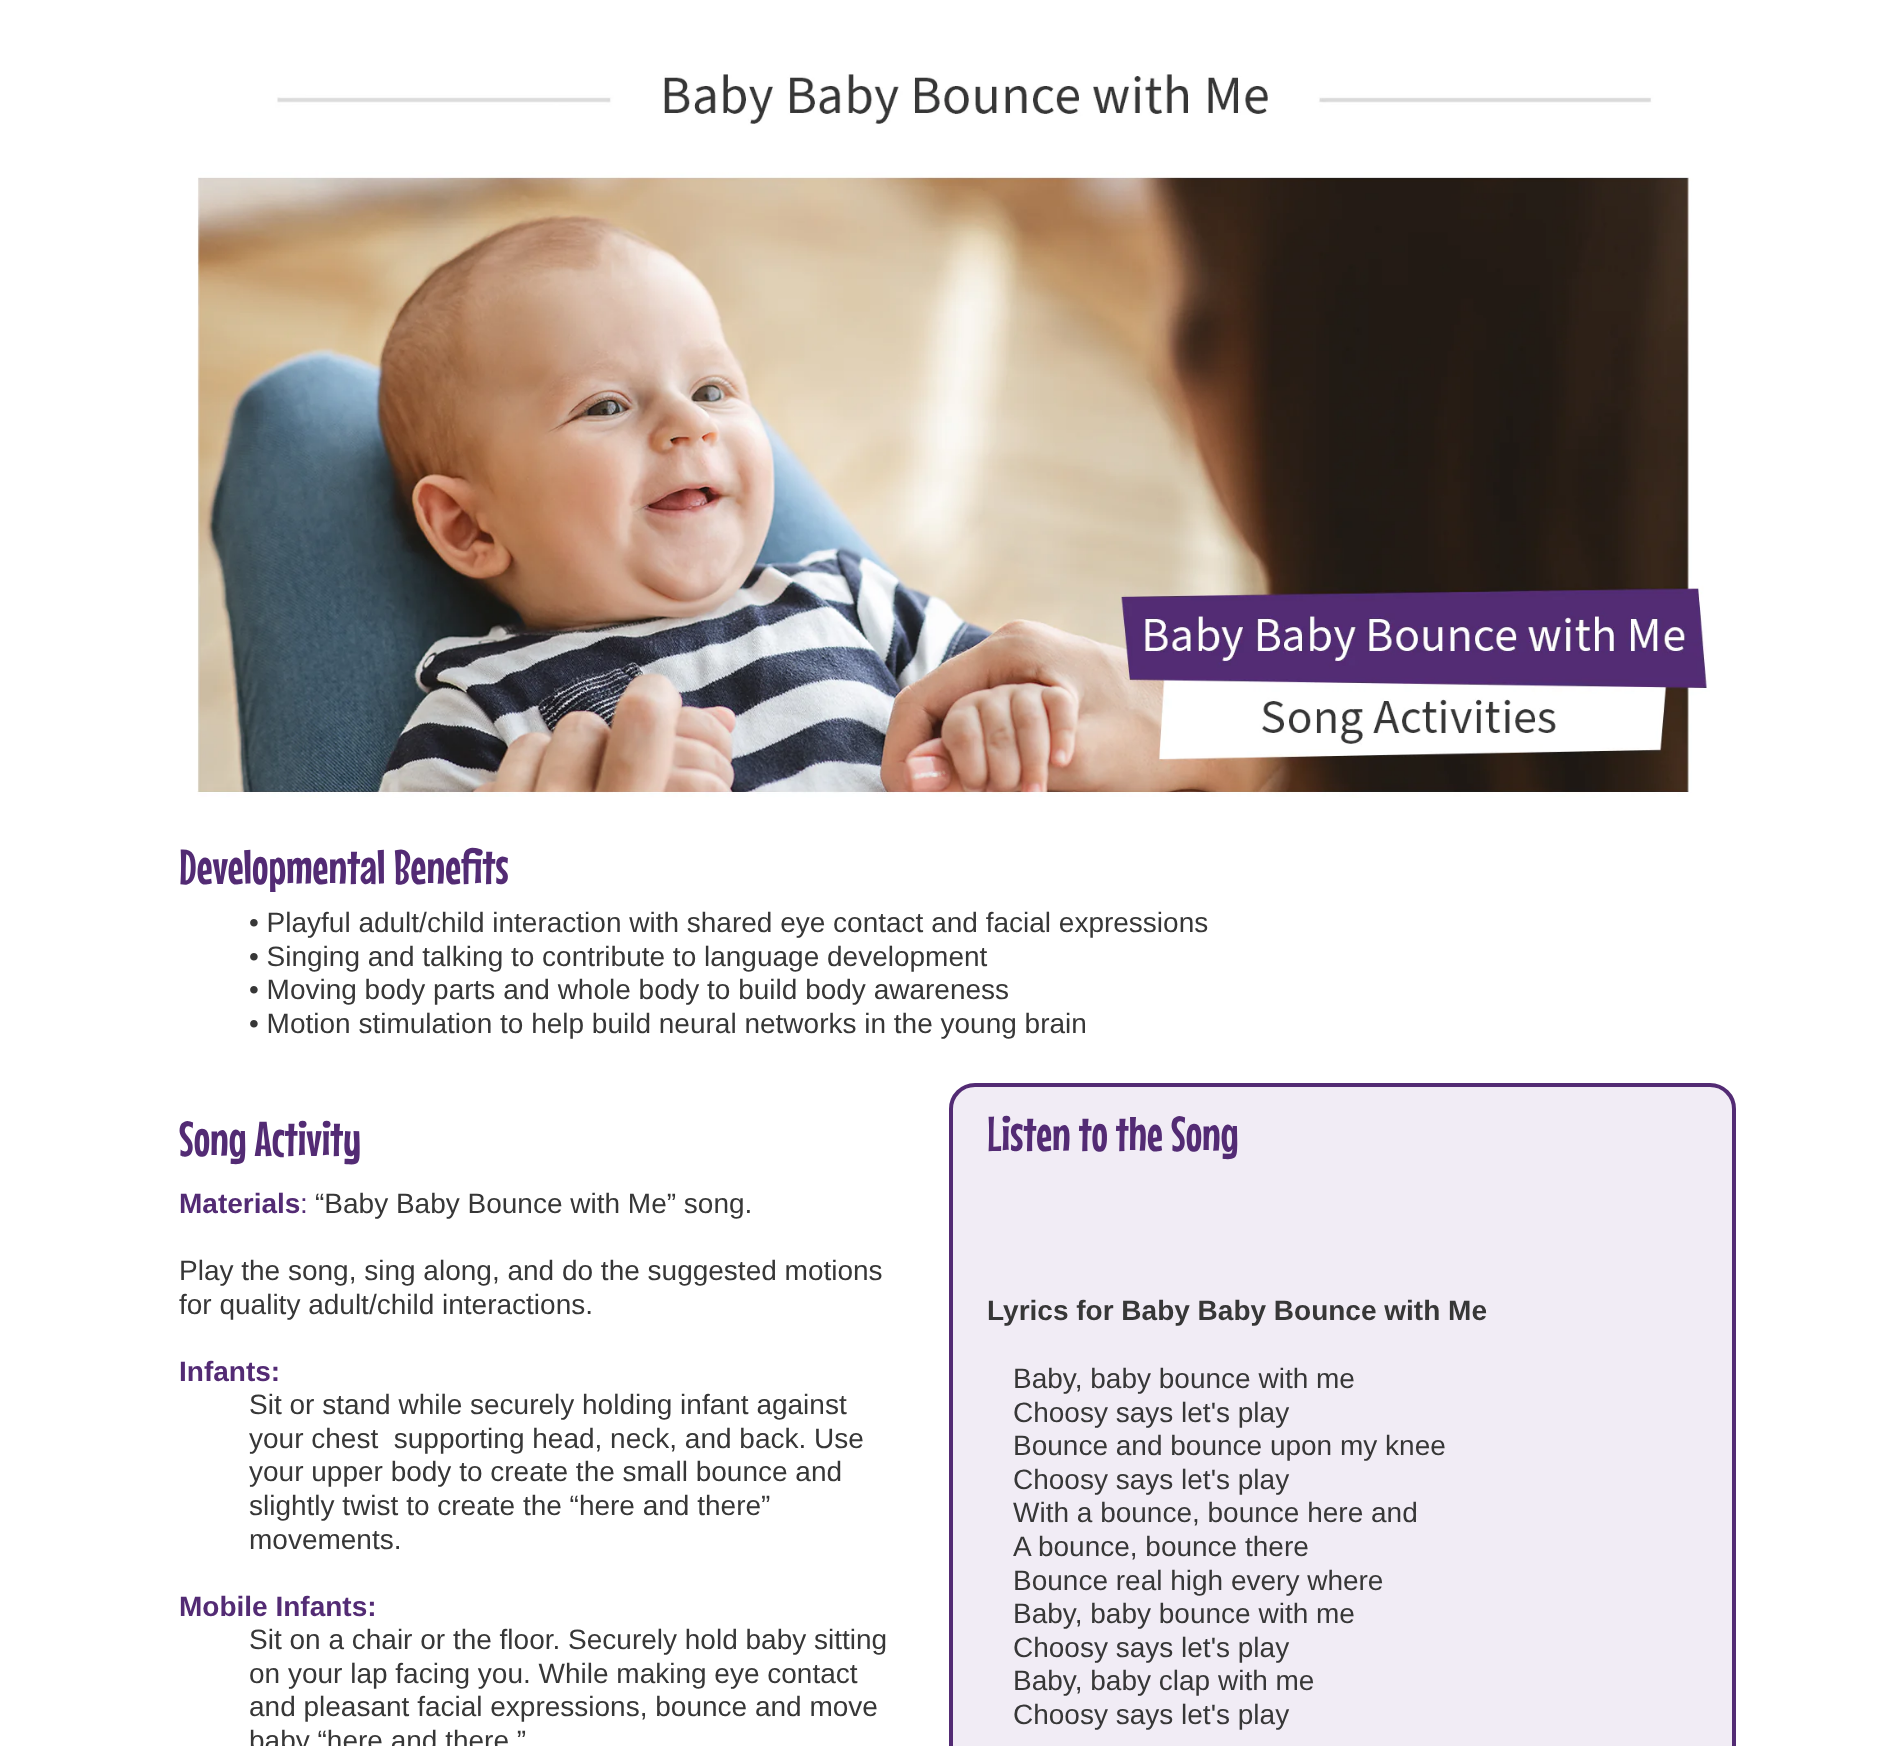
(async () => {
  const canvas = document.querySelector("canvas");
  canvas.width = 1896;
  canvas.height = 1746;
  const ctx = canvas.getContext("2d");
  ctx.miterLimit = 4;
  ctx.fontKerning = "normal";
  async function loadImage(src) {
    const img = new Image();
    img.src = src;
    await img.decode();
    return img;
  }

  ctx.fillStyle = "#ffffff";
  ctx.fillRect(0, 0, 1896, 1746);
  ctx.drawImage(await loadImage("img/1.png"), 197, 74, 1513, 724);
  ctx.fillStyle = "#f1ecf5";
  ctx.beginPath();
  ctx.roundRect(951, 1085, 783, 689, 24);
  ctx.fill();
  ctx.strokeStyle = "#532b74";
  ctx.lineWidth = 4;
  ctx.stroke();
  ctx.font = "49px Mouse Memoirs";
  ctx.fillStyle = "#532b74";
  ctx.fillText("Developmental Benefits", 179, 884);
  ctx.font = "28px Liberation Sans";
  ctx.fillStyle = "#373737";
  for (const [text, x, y] of [
    ["• Playful adult/child interaction with shared eye contact and facial expressions", 249, 932],
    ["• Singing and talking to contribute to language development", 249, 966],
    ["• Moving body parts and whole body to build body awareness", 249, 999],
    ["• Motion stimulation to help build neural networks in the young brain", 249, 1033],
  ]) {
    ctx.fillText(text, x, y);
  }
  ctx.font = "49px Mouse Memoirs";
  ctx.fillStyle = "#532b74";
  ctx.fillText("Song Activity", 179, 1156);
  ctx.font = "bold 28px Liberation Sans";
  ctx.fillText("Materials", 179, 1213);
  ctx.font = "28px Liberation Sans";
  ctx.fillText(":", 300, 1213);
  ctx.fillStyle = "#373737";
  for (const [text, x, y] of [
    ["“Baby Baby Bounce with Me” song.", 315, 1213],
    ["Play the song, sing along, and do the suggested motions", 179, 1280],
    ["for quality adult/child interactions.", 179, 1314],
  ]) {
    ctx.fillText(text, x, y);
  }
  ctx.font = "bold 28px Liberation Sans";
  ctx.fillStyle = "#532b74";
  ctx.fillText("Infants:", 179, 1381);
  ctx.font = "28px Liberation Sans";
  ctx.fillStyle = "#373737";
  for (const [text, x, y] of [
    ["Sit or stand while securely holding infant against", 249, 1414],
    ["your chest  supporting head, neck, and back. Use", 249, 1448],
    ["your upper body to create the small bounce and", 249, 1481],
    ["slightly twist to create the “here and there”", 249, 1515],
    ["movements.", 249, 1549],
  ]) {
    ctx.fillText(text, x, y);
  }
  ctx.font = "bold 28px Liberation Sans";
  ctx.fillStyle = "#532b74";
  ctx.fillText("Mobile Infants:", 179, 1616);
  ctx.font = "28px Liberation Sans";
  ctx.fillStyle = "#373737";
  for (const [text, x, y] of [
    ["Sit on a chair or the floor. Securely hold baby sitting", 249, 1649],
    ["on your lap facing you. While making eye contact", 249, 1683],
    ["and pleasant facial expressions, bounce and move", 249, 1716],
    ["baby “here and there.”", 249, 1750],
  ]) {
    ctx.fillText(text, x, y);
  }
  ctx.font = "49px Mouse Memoirs";
  ctx.fillStyle = "#532b74";
  ctx.fillText("Listen to the Song", 987, 1151);
  ctx.font = "bold 28px Liberation Sans";
  ctx.fillStyle = "#373737";
  ctx.fillText("Lyrics for Baby Baby Bounce with Me", 987, 1320);
  ctx.font = "28px Liberation Sans";
  for (const [text, x, y] of [
    ["Baby, baby bounce with me", 1013, 1388],
    ["Choosy says let's play", 1013, 1422],
    ["Bounce and bounce upon my knee", 1013, 1455],
    ["Choosy says let's play", 1013, 1489],
    ["With a bounce, bounce here and", 1013, 1522],
    ["A bounce, bounce there", 1013, 1556],
    ["Bounce real high every where", 1013, 1590],
    ["Baby, baby bounce with me", 1013, 1623],
    ["Choosy says let's play", 1013, 1657],
    ["Baby, baby clap with me", 1013, 1690],
    ["Choosy says let's play", 1013, 1724],
  ]) {
    ctx.fillText(text, x, y);
  }
})();
